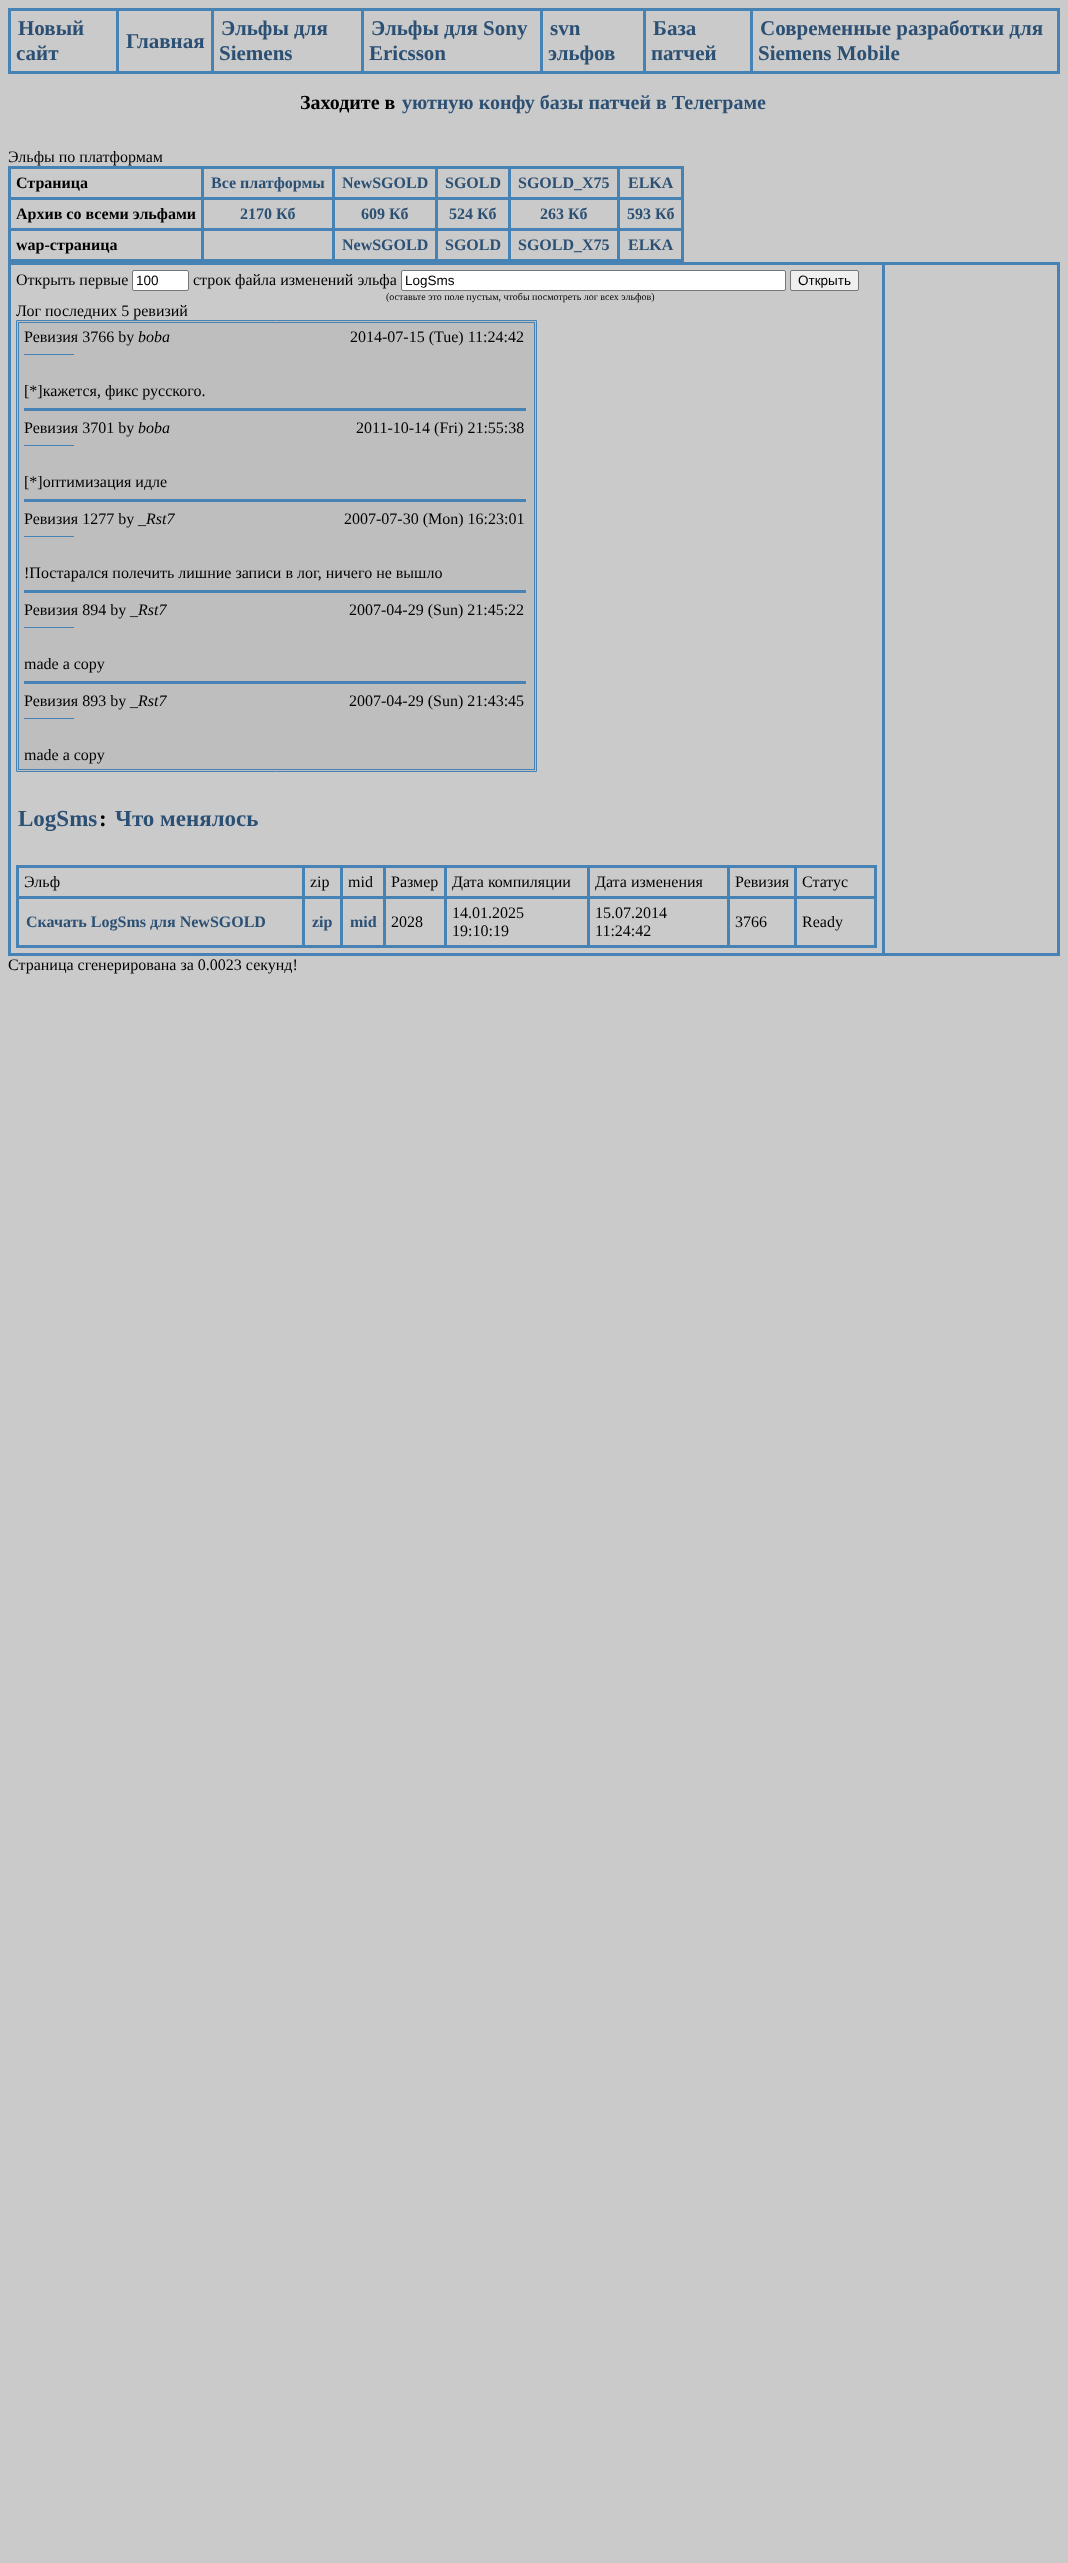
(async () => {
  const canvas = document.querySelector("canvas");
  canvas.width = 1068;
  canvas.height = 2563;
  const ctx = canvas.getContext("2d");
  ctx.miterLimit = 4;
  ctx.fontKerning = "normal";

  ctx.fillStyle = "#cacaca";
  ctx.fillRect(0, 0, 1068, 2563);
  for (const [x, y, w, h, color] of [
    [8, 8, 1052, 3, "#4682b4"],
    [1057, 8, 3, 66, "#4682b4"],
    [8, 71, 1052, 3, "#4682b4"],
    [8, 8, 3, 66, "#4682b4"],
    [116, 8, 3, 66, "#4682b4"],
    [211, 8, 3, 66, "#4682b4"],
    [361, 8, 3, 66, "#4682b4"],
    [540, 8, 3, 66, "#4682b4"],
    [643, 8, 3, 66, "#4682b4"],
    [750, 8, 3, 66, "#4682b4"],
    [8, 166, 676, 3, "#4682b4"],
    [681, 166, 3, 96, "#4682b4"],
    [8, 259, 676, 3, "#4682b4"],
    [8, 166, 3, 96, "#4682b4"],
    [8, 197, 676, 3, "#4682b4"],
    [8, 228, 676, 3, "#4682b4"],
    [201, 166, 3, 96, "#4682b4"],
    [332, 166, 3, 96, "#4682b4"],
    [435, 166, 3, 96, "#4682b4"],
    [508, 166, 3, 96, "#4682b4"],
    [617, 166, 3, 96, "#4682b4"],
    [8, 262, 1052, 3, "#4682b4"],
    [1057, 262, 3, 694, "#4682b4"],
    [8, 953, 1052, 3, "#4682b4"],
    [8, 262, 3, 694, "#4682b4"],
    [882, 262, 3, 694, "#4682b4"],
  ]) {
    ctx.fillStyle = color;
    ctx.fillRect(x, y, w, h);
  }
  ctx.fillStyle = "#ffffff";
  ctx.beginPath();
  ctx.roundRect(132.5, 270.5, 56, 20, 1.5);
  ctx.fill();
  ctx.strokeStyle = "#767676";
  ctx.stroke();
  ctx.beginPath();
  ctx.roundRect(401.5, 270.5, 384, 20, 1.5);
  ctx.fill();
  ctx.stroke();
  ctx.fillStyle = "#efefef";
  ctx.beginPath();
  ctx.roundRect(790.5, 270.5, 68, 20, 1.5);
  ctx.fill();
  ctx.stroke();
  ctx.fillStyle = "#bebebe";
  ctx.beginPath();
  ctx.rect(16.5, 320.5, 520, 451);
  ctx.fill();
  ctx.strokeStyle = "#4682b4";
  ctx.stroke();
  ctx.strokeRect(18.5, 322.5, 516, 447);
  for (const [x, y, w, h, color] of [
    [24, 354, 50, 1, "#4682b4"],
    [24, 408, 502, 3, "#4682b4"],
    [24, 445, 50, 1, "#4682b4"],
    [24, 499, 502, 3, "#4682b4"],
    [24, 536, 50, 1, "#4682b4"],
    [24, 590, 502, 3, "#4682b4"],
    [24, 627, 50, 1, "#4682b4"],
    [24, 681, 502, 3, "#4682b4"],
    [24, 718, 50, 1, "#4682b4"],
    [16, 865, 861, 3, "#4682b4"],
    [874, 865, 3, 83, "#4682b4"],
    [16, 945, 861, 3, "#4682b4"],
    [16, 865, 3, 83, "#4682b4"],
    [16, 896, 861, 3, "#4682b4"],
    [302, 865, 3, 83, "#4682b4"],
    [340, 865, 3, 83, "#4682b4"],
    [383, 865, 3, 83, "#4682b4"],
    [444, 865, 3, 83, "#4682b4"],
    [587, 865, 3, 83, "#4682b4"],
    [727, 865, 3, 83, "#4682b4"],
    [794, 865, 3, 83, "#4682b4"],
  ]) {
    ctx.fillStyle = color;
    ctx.fillRect(x, y, w, h);
  }
  ctx.font = "bold 21px Liberation Serif";
  ctx.fillStyle = "#2b5074";
  for (const [text, x, y] of [
    ["Новый", 18, 35],
    ["сайт", 16, 60],
    ["Главная", 126, 48],
    ["Эльфы для", 221, 35],
    ["Siemens", 219, 60],
    ["Эльфы для Sony", 371, 35],
    ["Ericsson", 369, 60],
    ["svn", 550, 35],
    ["эльфов", 548, 60],
    ["База", 653, 35],
    ["патчей", 651, 60],
    ["Современные разработки для", 760, 35],
    ["Siemens Mobile", 758, 60],
  ]) {
    ctx.fillText(text, x, y);
  }
  ctx.font = "bold 20px Liberation Serif";
  ctx.fillStyle = "#000000";
  ctx.fillText("Заходите в", 300, 109);
  ctx.fillStyle = "#2b5074";
  ctx.fillText("уютную конфу базы патчей в Телеграме", 402, 109);
  ctx.font = "16px Liberation Serif";
  ctx.fillStyle = "#000000";
  ctx.fillText("Эльфы по платформам", 8, 162);
  ctx.font = "bold 16px Liberation Serif";
  ctx.fillText("Страница", 16, 188);
  ctx.fillStyle = "#2b5074";
  for (const [text, x, y] of [
    ["Все платформы", 211, 188],
    ["NewSGOLD", 342, 188],
    ["SGOLD", 445, 188],
    ["SGOLD_X75", 518, 188],
    ["ELKA", 628, 188],
  ]) {
    ctx.fillText(text, x, y);
  }
  ctx.fillStyle = "#000000";
  ctx.fillText("Архив со всеми эльфами", 16, 219);
  ctx.fillStyle = "#2b5074";
  for (const [text, x, y] of [
    ["2170 Кб", 240, 219],
    ["609 Кб", 361, 219],
    ["524 Кб", 449, 219],
    ["263 Кб", 540, 219],
    ["593 Кб", 627, 219],
  ]) {
    ctx.fillText(text, x, y);
  }
  ctx.fillStyle = "#000000";
  ctx.fillText("wap-страница", 16, 250);
  ctx.fillStyle = "#2b5074";
  for (const [text, x, y] of [
    ["NewSGOLD", 342, 250],
    ["SGOLD", 445, 250],
    ["SGOLD_X75", 518, 250],
    ["ELKA", 628, 250],
  ]) {
    ctx.fillText(text, x, y);
  }
  ctx.font = "16px Liberation Serif";
  ctx.fillStyle = "#000000";
  ctx.fillText("Открыть первые", 16, 285);
  ctx.font = "13.5px Liberation Sans";
  ctx.fillText("100", 136, 285);
  ctx.font = "16px Liberation Serif";
  ctx.fillText("строк файла изменений эльфа", 193, 285);
  ctx.font = "13.5px Liberation Sans";
  ctx.fillText("LogSms", 405, 285);
  ctx.fillText("Открыть", 798, 285);
  ctx.font = "10px Liberation Serif";
  ctx.fillText("(оставьте это поле пустым, чтобы посмотреть лог всех эльфов)", 386, 300);
  ctx.font = "16px Liberation Serif";
  ctx.fillText("Лог последних 5 ревизий", 16, 316);
  ctx.fillText("Ревизия 3766 by", 24, 342);
  ctx.font = "italic 16px Liberation Serif";
  ctx.fillText("boba", 138, 342);
  ctx.font = "16px Liberation Serif";
  for (const [text, x, y] of [
    ["2014-07-15 (Tue) 11:24:42", 350, 342],
    ["[*]кажется, фикс русского.", 24, 396],
    ["Ревизия 3701 by", 24, 433],
  ]) {
    ctx.fillText(text, x, y);
  }
  ctx.font = "italic 16px Liberation Serif";
  ctx.fillText("boba", 138, 433);
  ctx.font = "16px Liberation Serif";
  for (const [text, x, y] of [
    ["2011-10-14 (Fri) 21:55:38", 356, 433],
    ["[*]оптимизация идле", 24, 487],
    ["Ревизия 1277 by", 24, 524],
  ]) {
    ctx.fillText(text, x, y);
  }
  ctx.font = "italic 16px Liberation Serif";
  ctx.fillText("_Rst7", 138, 524);
  ctx.font = "16px Liberation Serif";
  for (const [text, x, y] of [
    ["2007-07-30 (Mon) 16:23:01", 344, 524],
    ["!Постарался полечить лишние записи в лог, ничего не вышло", 24, 578],
    ["Ревизия 894 by", 24, 615],
  ]) {
    ctx.fillText(text, x, y);
  }
  ctx.font = "italic 16px Liberation Serif";
  ctx.fillText("_Rst7", 130, 615);
  ctx.font = "16px Liberation Serif";
  for (const [text, x, y] of [
    ["2007-04-29 (Sun) 21:45:22", 349, 615],
    ["made a copy", 24, 669],
    ["Ревизия 893 by", 24, 706],
  ]) {
    ctx.fillText(text, x, y);
  }
  ctx.font = "italic 16px Liberation Serif";
  ctx.fillText("_Rst7", 130, 706);
  ctx.font = "16px Liberation Serif";
  ctx.fillText("2007-04-29 (Sun) 21:43:45", 349, 706);
  ctx.fillText("made a copy", 24, 760);
  ctx.font = "bold 23px Liberation Serif";
  ctx.fillStyle = "#2b5074";
  ctx.fillText("LogSms", 18, 826);
  ctx.fillStyle = "#000000";
  ctx.fillText(":", 99, 826);
  ctx.fillStyle = "#2b5074";
  ctx.fillText("Что менялось", 115, 826);
  ctx.font = "16px Liberation Serif";
  ctx.fillStyle = "#000000";
  for (const [text, x, y] of [
    ["Эльф", 24, 887],
    ["zip", 310, 887],
    ["mid", 348, 887],
    ["Размер", 391, 887],
    ["Дата компиляции", 452, 887],
    ["Дата изменения", 595, 887],
    ["Ревизия", 735, 887],
    ["Статус", 802, 887],
  ]) {
    ctx.fillText(text, x, y);
  }
  ctx.font = "bold 16px Liberation Serif";
  ctx.fillStyle = "#2b5074";
  for (const [text, x, y] of [
    ["Скачать LogSms для NewSGOLD", 26, 927],
    ["zip", 312, 927],
    ["mid", 350, 927],
  ]) {
    ctx.fillText(text, x, y);
  }
  ctx.font = "16px Liberation Serif";
  ctx.fillStyle = "#000000";
  for (const [text, x, y] of [
    ["2028", 391, 927],
    ["14.01.2025", 452, 918],
    ["19:10:19", 452, 936],
    ["15.07.2014", 595, 918],
    ["11:24:42", 595, 936],
    ["3766", 735, 927],
    ["Ready", 802, 927],
    ["Страница сгенерирована за 0.0023 секунд!", 8, 970],
  ]) {
    ctx.fillText(text, x, y);
  }
})();
